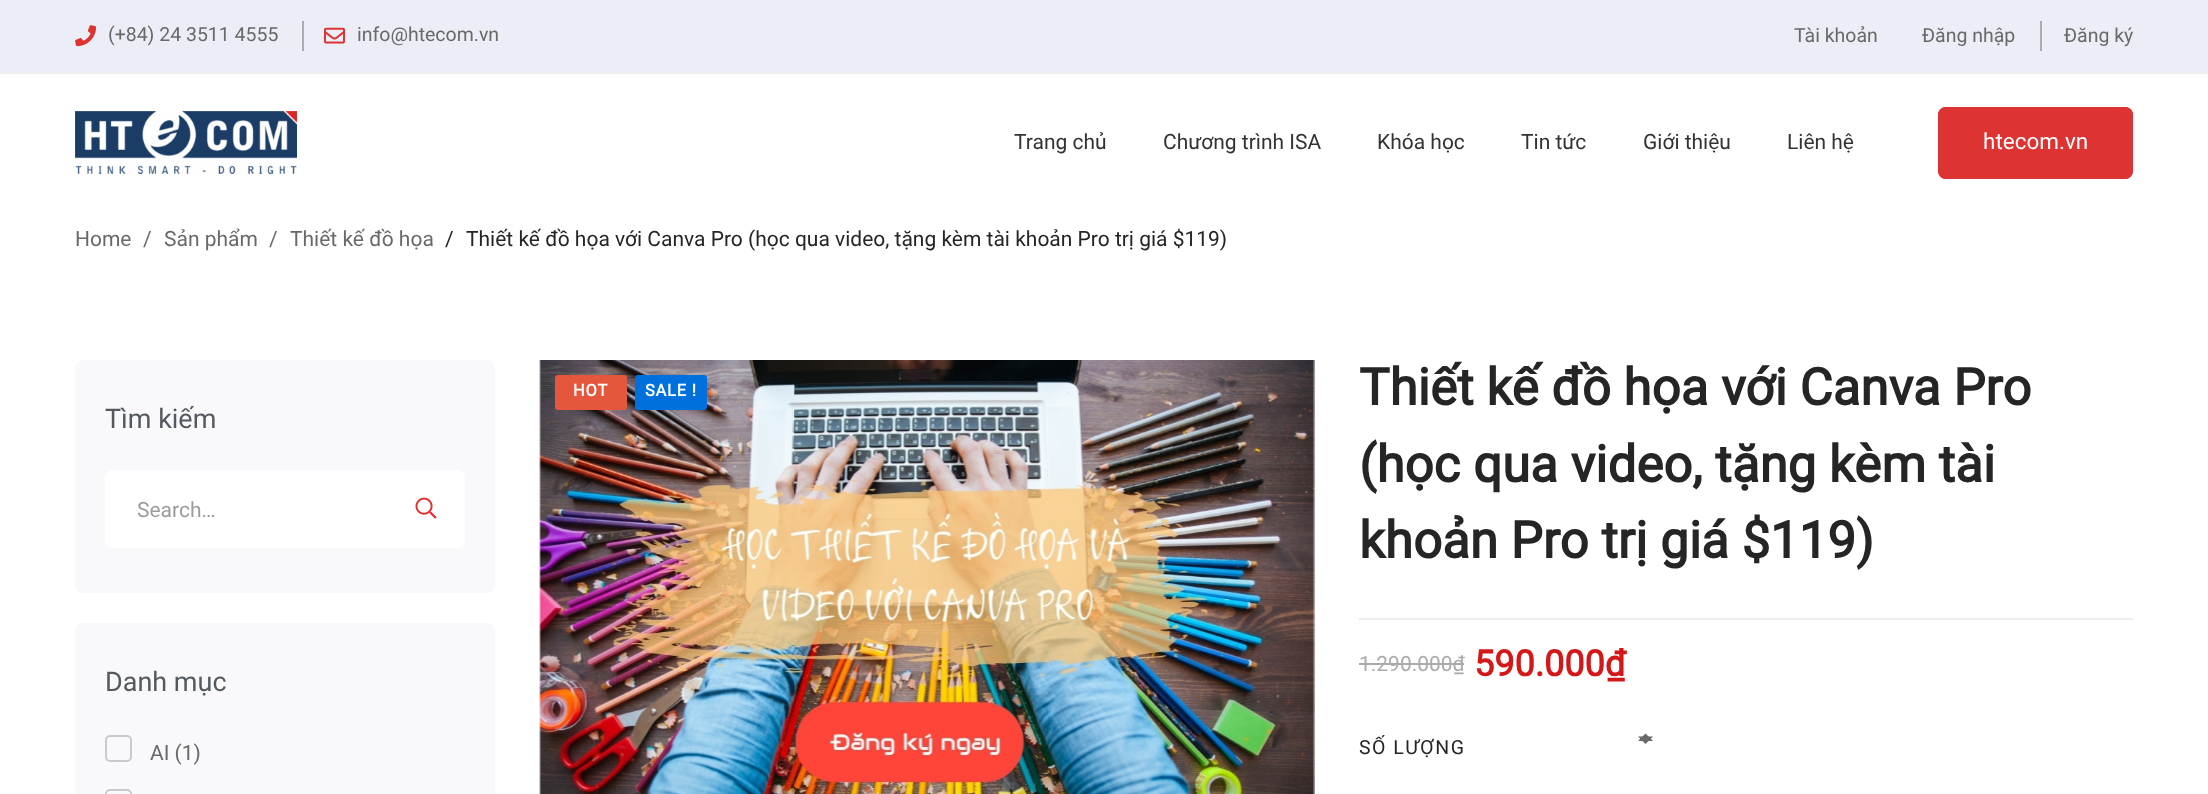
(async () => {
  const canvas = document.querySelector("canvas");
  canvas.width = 2208;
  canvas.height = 794;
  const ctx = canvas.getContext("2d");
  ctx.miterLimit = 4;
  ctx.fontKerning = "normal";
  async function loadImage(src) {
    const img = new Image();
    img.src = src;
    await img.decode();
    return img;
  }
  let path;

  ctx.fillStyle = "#ffffff";
  ctx.fillRect(0, 0, 2208, 794);
  ctx.fillStyle = "#ebeef6";
  ctx.fillRect(0, 0, 2208, 72);
  ctx.fillStyle = "#eeeeee";
  ctx.fillRect(0, 72, 2208, 2);
  ctx.drawImage(await loadImage("img/1.png"), 75, 25, 21, 22);
  ctx.fillStyle = "#aaacb2";
  ctx.fillRect(302, 21, 2, 30);
  ctx.drawImage(await loadImage("img/2.png"), 324, 27, 21, 17);
  ctx.fillRect(2040, 21, 2, 30);
  ctx.drawImage(await loadImage("img/3.png"), 75, 111, 222, 63);
  ctx.beginPath();
  ctx.roundRect(1939.5, 108.5, 192, 69, 6.5);
  ctx.strokeStyle = "#dd3333";
  ctx.lineWidth = 3;
  ctx.stroke();
  ctx.fillStyle = "#dd3333";
  ctx.beginPath();
  ctx.roundRect(1938, 107, 195, 72, 8);
  ctx.fill();
  ctx.fillStyle = "#f9f9fb";
  ctx.beginPath();
  ctx.roundRect(75, 360, 420, 233, 8);
  ctx.fill();
  ctx.fillStyle = "#ffffff";
  ctx.beginPath();
  ctx.roundRect(105, 470, 360, 78, 8);
  ctx.fill();
  ctx.drawImage(await loadImage("img/4.png"), 415, 497, 22, 22);
  ctx.fillStyle = "#f9f9fb";
  ctx.beginPath();
  ctx.roundRect(75, 623, 420, 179, 8);
  ctx.fill();
  ctx.beginPath();
  ctx.roundRect(106, 736, 25, 25, 4);
  ctx.strokeStyle = "#cacaca";
  ctx.lineWidth = 2;
  ctx.stroke();
  ctx.beginPath();
  ctx.roundRect(106, 790, 25, 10, 4);
  ctx.stroke();
  ctx.drawImage(await loadImage("img/5.png"), 539, 360, 776, 434);
  ctx.fillStyle = "#e4573d";
  ctx.beginPath();
  ctx.roundRect(555, 375, 72, 35, 3);
  ctx.fill();
  ctx.fillStyle = "#0071dc";
  ctx.beginPath();
  ctx.roundRect(635, 375, 72, 35, 3);
  ctx.fill();
  ctx.fillStyle = "#eeeeee";
  ctx.fillRect(1359, 618, 774, 2);
  ctx.fillStyle = "#ababab";
  ctx.fillRect(1359, 663, 105, 2);
  ctx.fillStyle = "#696969";
  path = new Path2D("M1653 741H1638L1645.5 733.5Z");
  ctx.fill(path);
  path = new Path2D("M1638 736.5H1653L1645.5 744Z");
  ctx.fill(path);
  ctx.font = "19.5px Roboto";
  for (const [text, x, y] of [
    ["(+84) 24 3511 4555", 108, 41],
    ["info@htecom.vn", 357, 41],
    ["Tài khoản", 1794, 42],
    ["Đăng nhập", 1922, 42],
    ["Đăng ký", 2064, 42],
  ]) {
    ctx.fillText(text, x, y);
  }
  ctx.font = "21px Roboto";
  ctx.fillStyle = "#333333";
  for (const [text, x, y] of [
    ["Trang chủ", 1014, 149],
    ["Chương trình ISA", 1163, 149],
    ["Khóa học", 1377, 149],
    ["Tin tức", 1521, 149],
    ["Giới thiệu", 1643, 149],
    ["Liên hệ", 1787, 149],
  ]) {
    ctx.fillText(text, x, y);
  }
  ctx.font = "22.5px Roboto";
  ctx.fillStyle = "#ffffff";
  ctx.fillText("htecom.vn", 1983, 149);
  ctx.font = "21px Roboto";
  ctx.fillStyle = "#696969";
  for (const [text, x, y] of [
    ["Home", 75, 246],
    ["/", 143, 246],
    ["Sản phẩm", 164, 246],
    ["/", 269, 246],
    ["Thiết kế đồ họa", 290, 246],
  ]) {
    ctx.fillText(text, x, y);
  }
  ctx.fillStyle = "#252525";
  ctx.fillText("/", 445, 246);
  ctx.fillText("Thiết kế đồ họa với Canva Pro (học qua video, tặng kèm tài khoản Pro trị giá $119)", 466, 246);
  ctx.font = "27px Roboto";
  ctx.fillStyle = "#54595f";
  ctx.fillText("Tìm kiếm", 105, 428);
  ctx.font = "21px Roboto";
  ctx.fillStyle = "#9b9b9b";
  ctx.fillText("Search…", 137, 517);
  ctx.font = "27px Roboto";
  ctx.fillStyle = "#54595f";
  ctx.fillText("Danh mục", 105, 691);
  ctx.font = "21px Roboto";
  ctx.fillStyle = "#696969";
  ctx.fillText("AI (1)", 150, 760);
  ctx.letterSpacing = "0.75px";
  ctx.font = "bold 16.5px Roboto";
  ctx.fillStyle = "#ffffff";
  ctx.fillText("HOT", 573, 396);
  ctx.fillText("SALE !", 645, 396);
  ctx.letterSpacing = "0px";
  ctx.font = "bold 51px Roboto";
  ctx.fillStyle = "#252525";
  for (const [text, x, y] of [
    ["Thiết kế đồ họa với Canva Pro", 1359, 405],
    ["(học qua video, tặng kèm tài", 1359, 482],
    ["khoản Pro trị giá $119)", 1359, 558],
  ]) {
    ctx.fillText(text, x, y);
  }
  ctx.font = "21px Roboto";
  ctx.fillStyle = "#ababab";
  ctx.fillText("1.290.000₫", 1359, 671);
  ctx.font = "bold 36px Roboto";
  ctx.fillStyle = "#d31819";
  ctx.fillText("590.000₫", 1474, 676);
  ctx.letterSpacing = "1.5px";
  ctx.font = "19.5px Roboto";
  ctx.fillStyle = "#252525";
  ctx.fillText("SỐ LƯỢNG", 1359, 754);
})();
